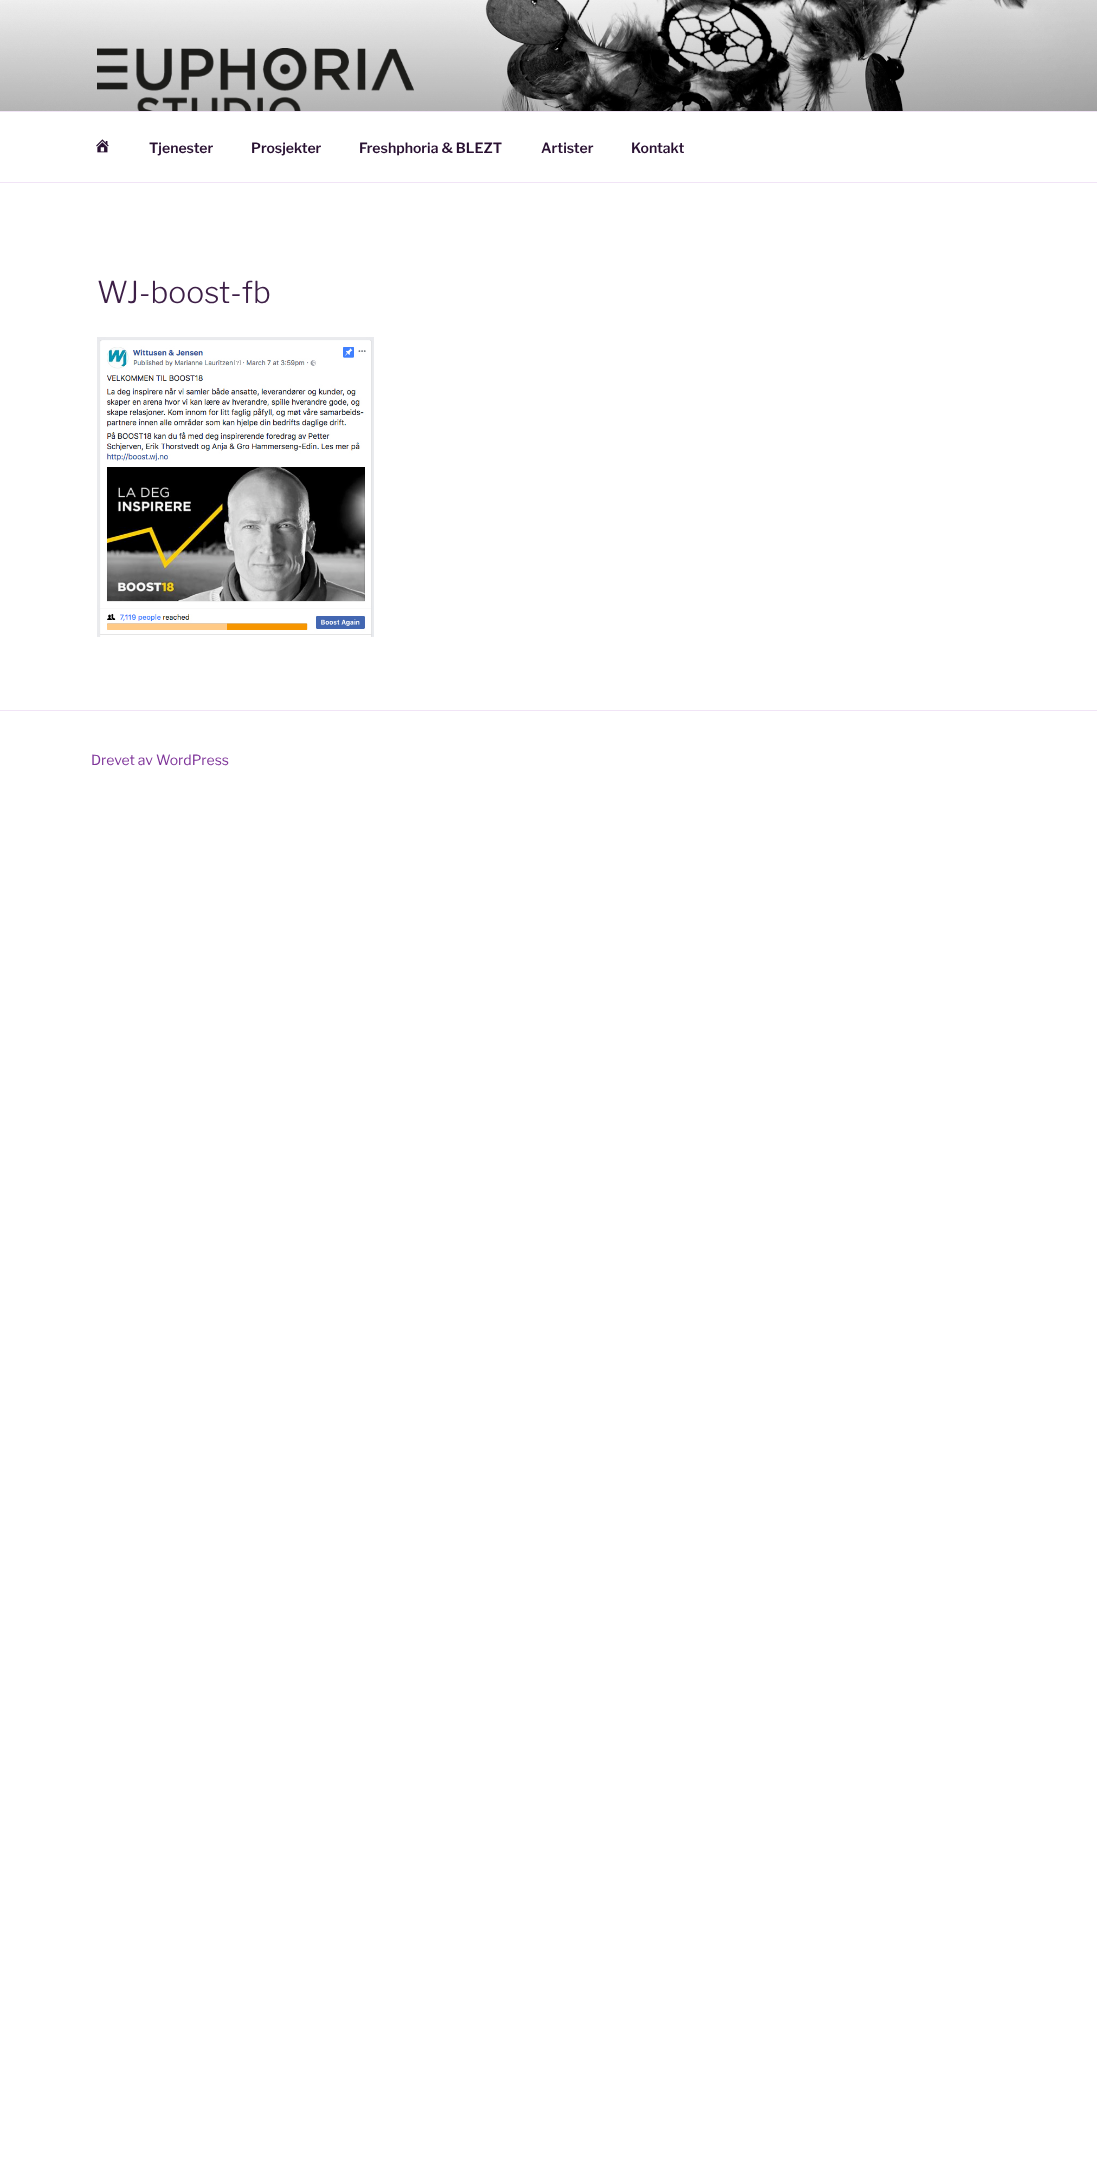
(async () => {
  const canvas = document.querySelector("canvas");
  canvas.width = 1097;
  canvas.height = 2173;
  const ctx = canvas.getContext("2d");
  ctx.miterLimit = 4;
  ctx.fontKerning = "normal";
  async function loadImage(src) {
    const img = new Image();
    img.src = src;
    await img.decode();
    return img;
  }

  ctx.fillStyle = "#ffffff";
  ctx.fillRect(0, 0, 1097, 2173);
  ctx.drawImage(await loadImage("img/1.png"), 0, 0, 1097, 111);
  ctx.drawImage(await loadImage("img/2.png"), 97, 48, 317, 63);
  ctx.fillStyle = "#f1e4f6";
  ctx.fillRect(0, 111, 1097, 1);
  ctx.fillRect(0, 182, 1097, 1);
  ctx.drawImage(await loadImage("img/3.png"), 96, 139, 13, 14);
  ctx.drawImage(await loadImage("img/4.png"), 97, 337, 277, 300);
  ctx.fillRect(0, 710, 1097, 1);
  ctx.font = "100 14px 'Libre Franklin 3'";
  ctx.fillStyle = "#291132";
  for (const [text, x, y] of [
    ["Tjenester", 149, 153],
    ["Prosjekter", 251, 153],
    ["Freshphoria & BLEZT", 359, 153],
    ["Artister", 541, 153],
    ["Kontakt", 631, 153],
  ]) {
    ctx.fillText(text, x, y);
  }
  ctx.font = "100 30px 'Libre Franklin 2'";
  ctx.fillStyle = "#3d1f47";
  ctx.fillText("WJ-boost-fb", 97, 303);
  ctx.font = "100 14px Libre Franklin";
  ctx.fillStyle = "#7e3399";
  ctx.fillText("Drevet av WordPress", 91, 765);
})();
